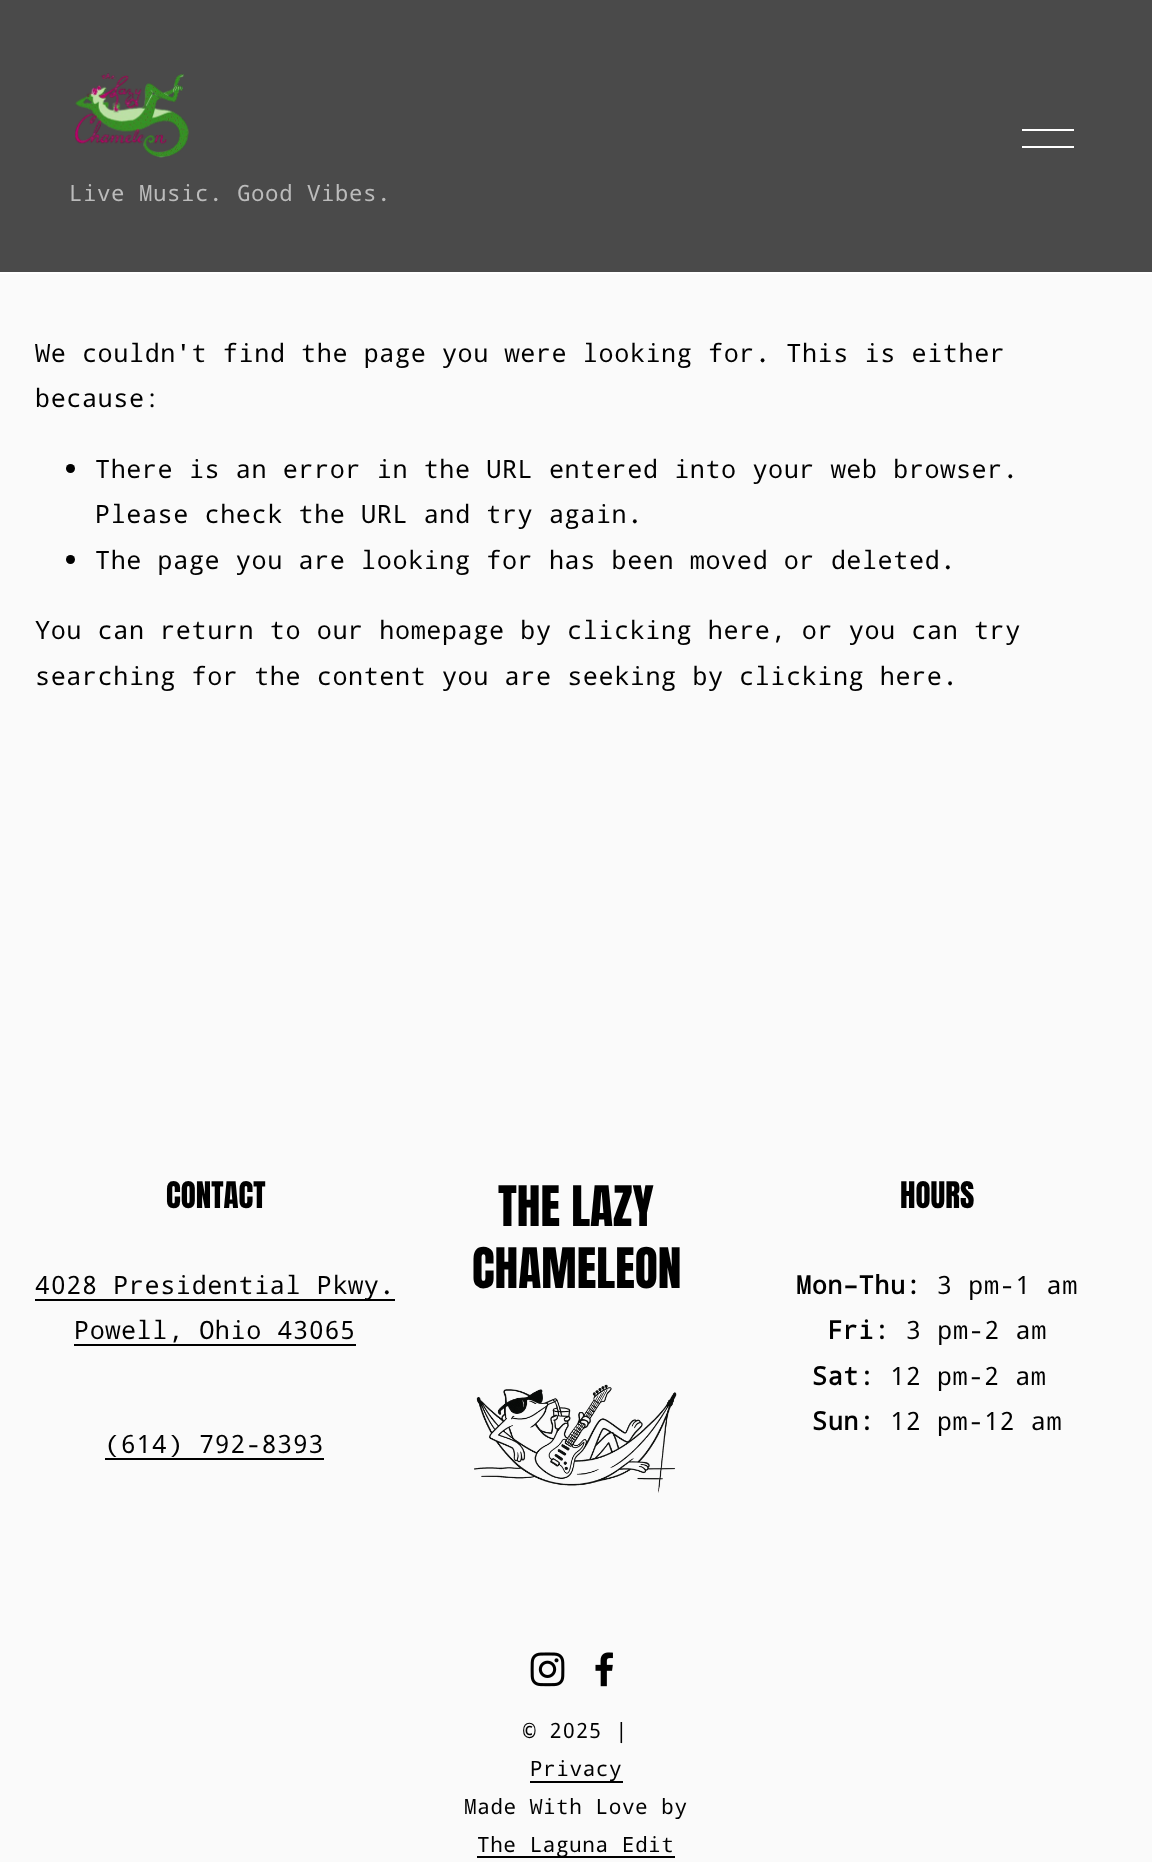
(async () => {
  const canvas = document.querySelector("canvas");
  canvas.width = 1152;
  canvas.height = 1862;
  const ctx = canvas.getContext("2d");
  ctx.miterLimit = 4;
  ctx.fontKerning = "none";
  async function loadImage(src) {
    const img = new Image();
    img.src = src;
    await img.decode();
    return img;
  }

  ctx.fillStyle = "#fafafa";
  ctx.fillRect(0, 0, 1152, 1862);
  for (const [x, y, w, h, color] of [
    [0, 0, 1152, 272, "#4a4a4a"],
    [1022, 129, 52, 2, "#ffffff"],
    [1022, 146, 52, 2, "#ffffff"],
  ]) {
    ctx.fillStyle = color;
    ctx.fillRect(x, y, w, h);
  }
  ctx.drawImage(await loadImage("img/1.png"), 75, 73, 114, 85);
  ctx.fillRect(0, 272, 1152, 2);
  ctx.fillStyle = "#000000";
  ctx.beginPath();
  ctx.arc(70.5, 468.5, 4.5, 0, Math.PI * 2);
  ctx.fill();
  ctx.beginPath();
  ctx.arc(70.5, 559.5, 4.5, 0, Math.PI * 2);
  ctx.fill();
  for (const [x, y, w, h, color] of [
    [35, 1299, 360, 2, "#000000"],
    [74, 1344, 282, 2, "#000000"],
    [105, 1458, 219, 2, "#000000"],
  ]) {
    ctx.fillStyle = color;
    ctx.fillRect(x, y, w, h);
  }
  ctx.drawImage(await loadImage("img/2.png"), 474, 1384, 203, 109);
  ctx.drawImage(await loadImage("img/3.png"), 530, 1652, 35, 35);
  ctx.drawImage(await loadImage("img/4.png"), 595, 1652, 18, 35);
  ctx.fillRect(530, 1781, 93, 2);
  ctx.fillRect(477, 1856, 198, 2);
  ctx.letterSpacing = "0.5px";
  ctx.font = "22.5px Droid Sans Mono";
  ctx.fillStyle = "#bbbbbb";
  ctx.fillText("Live Music. Good Vibes.", 69, 201);
  ctx.font = "25.25px Droid Sans Mono";
  ctx.fillStyle = "#000000";
  for (const [text, x, y] of [
    ["We couldn't find the page you were looking for. This is either", 35, 362],
    ["because:", 35, 407],
    ["There is an error in the URL entered into your web browser.", 95, 478],
    ["Please check the URL and try again.", 95, 523],
    ["The page you are looking for has been moved or deleted.", 95, 569],
    ["You can return to our homepage by", 35, 639],
    ["clicking here, or you can try", 567, 639],
    ["searching for the content you are seeking by", 35, 685],
    ["clicking here.", 739, 685],
  ]) {
    ctx.fillText(text, x, y);
  }
  ctx.letterSpacing = "0px";
  ctx.font = "31px Anton";
  ctx.fillText("CONTACT", 166, 1208);
  ctx.letterSpacing = "0.5px";
  ctx.font = "25.25px Droid Sans Mono";
  for (const [text, x, y] of [
    ["4028 Presidential Pkwy.", 35, 1294],
    ["Powell, Ohio 43065", 74, 1339],
    ["(614) 792-8393", 105, 1453],
  ]) {
    ctx.fillText(text, x, y);
  }
  ctx.letterSpacing = "0px";
  ctx.font = "47.5px Anton";
  ctx.fillText("THE LAZY", 498, 1226);
  ctx.fillText("CHAMELEON", 472, 1288);
  ctx.font = "31px Anton";
  ctx.fillText("HOURS", 900, 1208);
  ctx.letterSpacing = "0.5px";
  ctx.font = "bold 25.25px Droid Sans Mono";
  ctx.fillText("Mon–Thu:", 796, 1294);
  ctx.font = "25.25px Droid Sans Mono";
  ctx.fillText("3 pm-1 am", 937, 1294);
  ctx.font = "bold 25.25px Droid Sans Mono";
  ctx.fillText("Fri:", 827, 1339);
  ctx.font = "25.25px Droid Sans Mono";
  ctx.fillText("3 pm-2 am", 906, 1339);
  ctx.font = "bold 25.25px Droid Sans Mono";
  ctx.fillText("Sat:", 812, 1385);
  ctx.font = "25.25px Droid Sans Mono";
  ctx.fillText("12 pm-2 am", 890, 1385);
  ctx.font = "bold 25.25px Droid Sans Mono";
  ctx.fillText("Sun:", 812, 1430);
  ctx.font = "25.25px Droid Sans Mono";
  ctx.fillText("12 pm-12 am", 890, 1430);
  ctx.font = "21.1px Droid Sans Mono";
  for (const [text, x, y] of [
    ["© 2025 |", 523, 1738],
    ["Privacy", 530, 1776],
    ["Made With Love by", 464, 1814],
    ["The Laguna Edit", 477, 1852],
  ]) {
    ctx.fillText(text, x, y);
  }
})();
